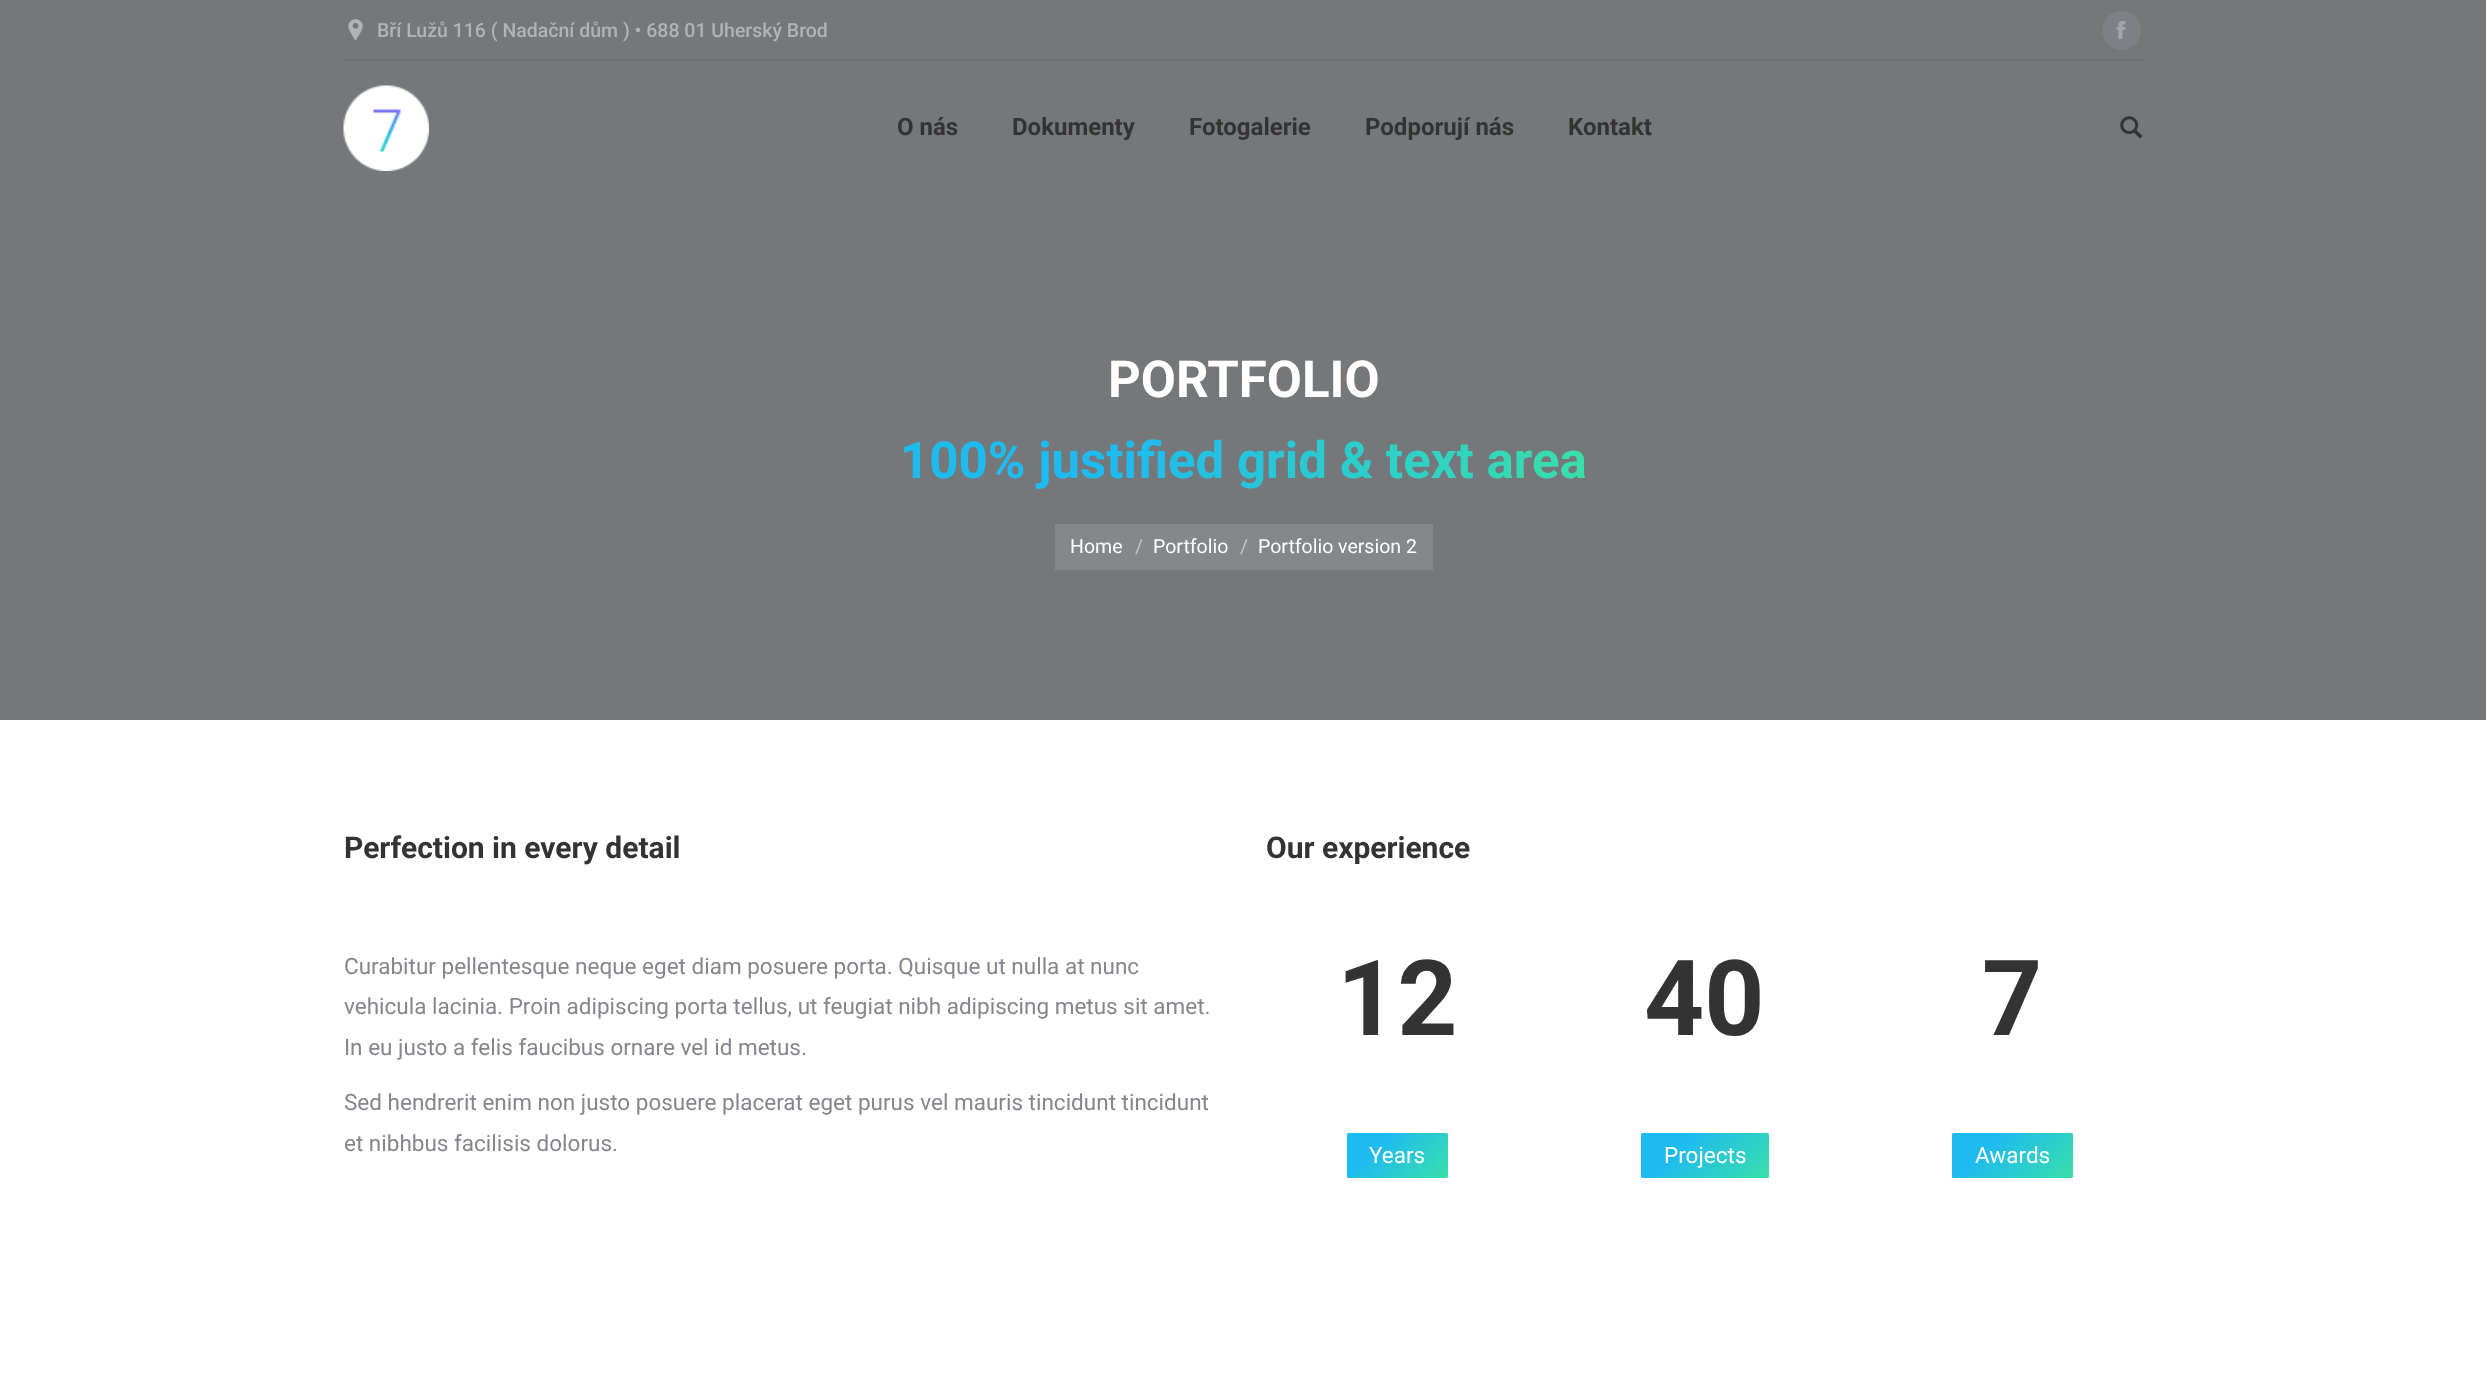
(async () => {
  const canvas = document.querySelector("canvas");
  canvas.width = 2486;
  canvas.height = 1382;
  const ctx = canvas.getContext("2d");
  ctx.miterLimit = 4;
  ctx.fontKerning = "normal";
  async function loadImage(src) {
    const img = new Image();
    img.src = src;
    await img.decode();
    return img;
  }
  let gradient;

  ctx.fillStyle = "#ffffff";
  ctx.fillRect(0, 0, 2486, 1382);
  ctx.fillStyle = "#74787b";
  ctx.fillRect(0, 0, 2486, 720);
  ctx.drawImage(await loadImage("img/1.png"), 348, 19, 15, 22);
  ctx.fillStyle = "#7d8084";
  ctx.beginPath();
  ctx.arc(2121.5, 30.5, 19.5, 0, Math.PI * 2);
  ctx.fill();
  ctx.drawImage(await loadImage("img/2.png"), 2116, 21, 10, 18);
  ctx.fillStyle = "#6c7072";
  ctx.fillRect(344, 59, 1800, 2);
  ctx.drawImage(await loadImage("img/3.png"), 343, 85, 86, 86);
  ctx.drawImage(await loadImage("img/4.png"), 2120, 116, 23, 23);
  ctx.fillStyle = "#85888b";
  ctx.fillRect(1055, 524, 378, 46);
  gradient = ctx.createLinearGradient(1361, 1119, 1434, 1191);
  gradient.addColorStop(0.3, "#1ebbf0");
  gradient.addColorStop(1, "#39dfaa");
  ctx.fillStyle = gradient;
  ctx.beginPath();
  ctx.roundRect(1347, 1133, 101, 45, 1.5);
  ctx.fill();
  gradient = ctx.createLinearGradient(1662, 1112, 1748, 1198);
  gradient.addColorStop(0.3, "#1ebbf0");
  gradient.addColorStop(1, "#39dfaa");
  ctx.fillStyle = gradient;
  ctx.beginPath();
  ctx.roundRect(1641, 1133, 128, 45, 1.5);
  ctx.fill();
  gradient = ctx.createLinearGradient(1971, 1113, 2054, 1197);
  gradient.addColorStop(0.3, "#1ebbf0");
  gradient.addColorStop(1, "#39dfaa");
  ctx.fillStyle = gradient;
  ctx.beginPath();
  ctx.roundRect(1952, 1133, 121, 45, 1.5);
  ctx.fill();
  ctx.font = "500 19.5px Roboto";
  ctx.fillStyle = "#b2b3b9";
  ctx.fillText("Bří Lužů 116 ( Nadační dům ) • 688 01 Uherský Brod", 377, 37);
  ctx.font = "bold 24px Roboto";
  ctx.fillStyle = "#333333";
  for (const [text, x, y] of [
    ["O nás", 897, 135],
    ["Dokumenty", 1012, 135],
    ["Fotogalerie", 1189, 135],
    ["Podporují nás", 1365, 135],
    ["Kontakt", 1568, 135],
  ]) {
    ctx.fillText(text, x, y);
  }
  ctx.font = "bold 51px Roboto";
  ctx.fillStyle = "#ffffff";
  ctx.fillText("PORTFOLIO", 1108, 397);
  gradient = ctx.createLinearGradient(900, 460, 1587, 460);
  gradient.addColorStop(0.32, "#1ebbf0");
  gradient.addColorStop(1, "#39dfaa");
  ctx.fillStyle = gradient;
  ctx.fillText("100% justified grid & text area", 900, 478);
  ctx.font = "19.5px Roboto";
  ctx.fillStyle = "#ffffff";
  ctx.fillText("Home", 1070, 553);
  ctx.fillStyle = "#c2c4c5";
  ctx.fillText("/", 1135, 553);
  ctx.fillStyle = "#ffffff";
  ctx.fillText("Portfolio", 1153, 553);
  ctx.fillStyle = "#c2c4c5";
  ctx.fillText("/", 1240, 553);
  ctx.fillStyle = "#ffffff";
  ctx.fillText("Portfolio version 2", 1258, 553);
  ctx.font = "bold 30px Roboto";
  ctx.fillStyle = "#333333";
  ctx.fillText("Perfection in every detail", 344, 858);
  ctx.font = "22.5px Roboto";
  ctx.fillStyle = "#85868c";
  for (const [text, x, y] of [
    ["Curabitur pellentesque neque eget diam posuere porta. Quisque ut nulla at nunc", 344, 974],
    ["vehicula lacinia. Proin adipiscing porta tellus, ut feugiat nibh adipiscing metus sit amet.", 344, 1014],
    ["In eu justo a felis faucibus ornare vel id metus.", 344, 1055],
    ["Sed hendrerit enim non justo posuere placerat eget purus vel mauris tincidunt tincidunt", 344, 1110],
    ["et nibhbus facilisis dolorus.", 344, 1151],
  ]) {
    ctx.fillText(text, x, y);
  }
  ctx.font = "bold 30px Roboto";
  ctx.fillStyle = "#333333";
  ctx.fillText("Our experience", 1266, 858);
  ctx.font = "bold 105px Roboto";
  ctx.fillText("12", 1337, 1035);
  ctx.font = "22.5px Roboto";
  ctx.fillStyle = "#ffffff";
  ctx.fillText("Years", 1369, 1163);
  ctx.font = "bold 105px Roboto";
  ctx.fillStyle = "#333333";
  ctx.fillText("40", 1644, 1035);
  ctx.font = "22.5px Roboto";
  ctx.fillStyle = "#ffffff";
  ctx.fillText("Projects", 1664, 1163);
  ctx.font = "bold 105px Roboto";
  ctx.fillStyle = "#333333";
  ctx.fillText("7", 1982, 1035);
  ctx.font = "22.5px Roboto";
  ctx.fillStyle = "#ffffff";
  ctx.fillText("Awards", 1975, 1163);
})();
